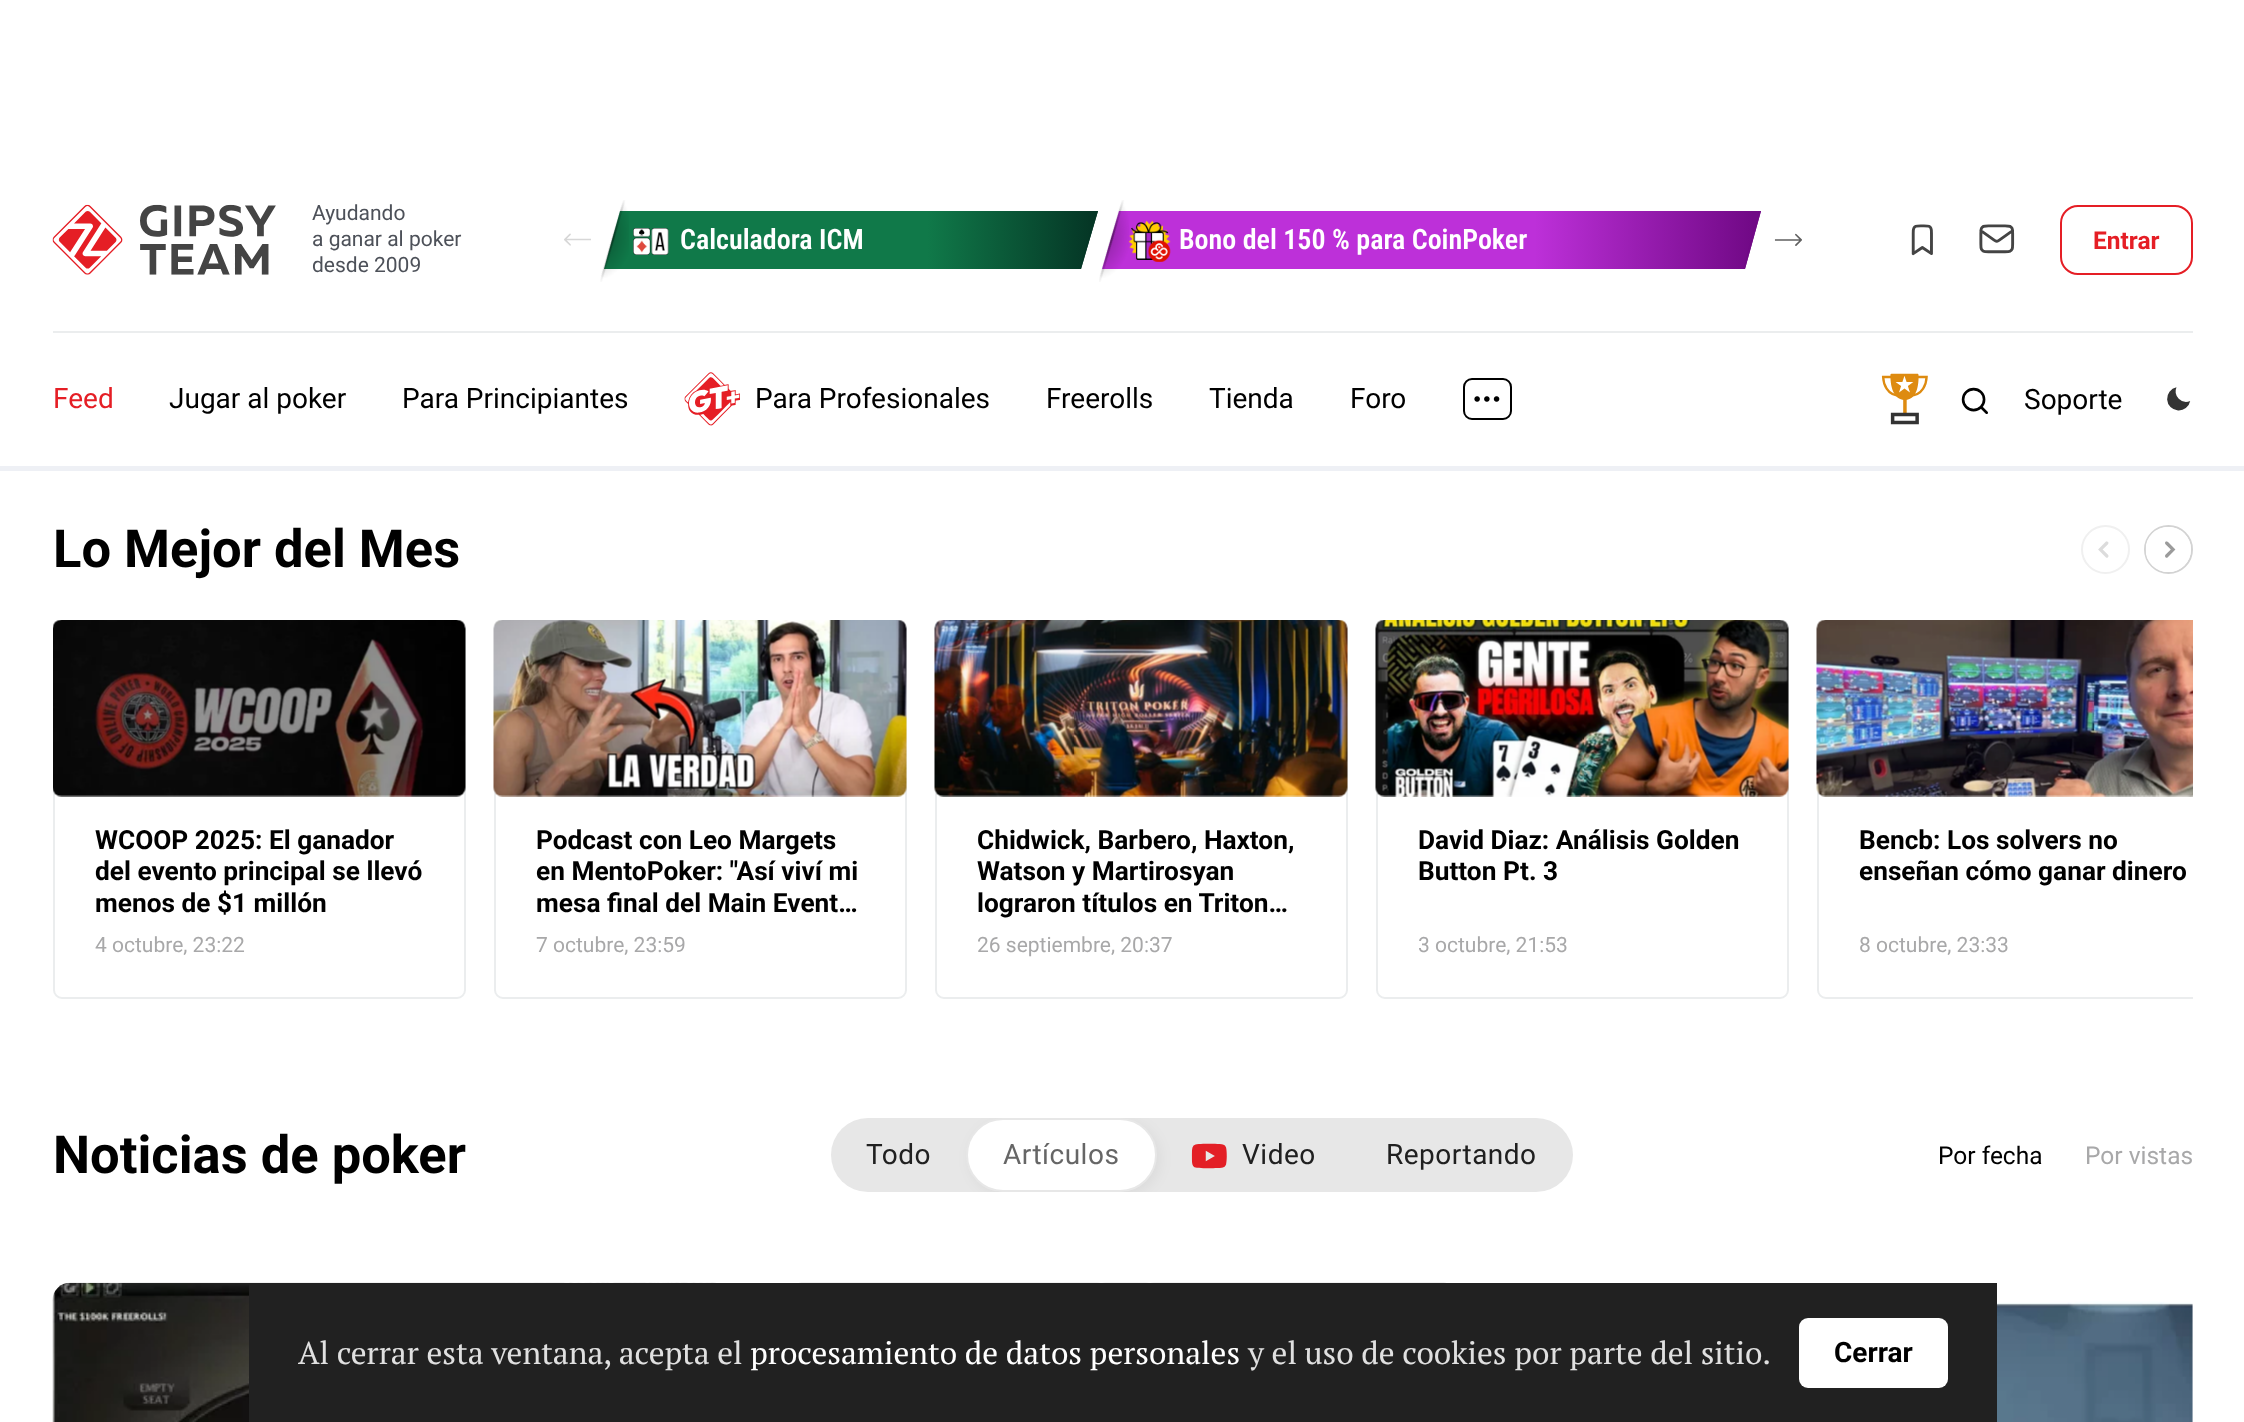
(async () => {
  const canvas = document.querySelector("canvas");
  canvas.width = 2244;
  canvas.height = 1422;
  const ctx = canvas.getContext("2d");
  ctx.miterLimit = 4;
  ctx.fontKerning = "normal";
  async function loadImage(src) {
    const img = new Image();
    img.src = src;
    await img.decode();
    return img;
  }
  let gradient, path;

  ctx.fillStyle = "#ffffff";
  ctx.fillRect(0, 0, 2244, 1422);
  ctx.drawImage(await loadImage("img/1.png"), 52, 204, 224, 71);
  ctx.drawImage(await loadImage("img/2.png"), 564, 233, 27, 13);
  gradient = ctx.createLinearGradient(612, 240, 1090, 240);
  gradient.addColorStop(0.66, "#107949");
  gradient.addColorStop(1, "#053726");
  ctx.fillStyle = gradient;
  path = new Path2D("M620 211H1098L1081 269H604Z");
  ctx.fill(path);
  ctx.fillStyle = "#053726";
  path = new Path2D("M1096 211H1098L1081 269H1080Z");
  ctx.fill(path);
  ctx.drawImage(await loadImage("img/3.png"), 600, 200, 29, 82);
  ctx.drawImage(await loadImage("img/4.png"), 633, 228, 36, 27);
  gradient = ctx.createLinearGradient(1111, 240, 1753, 240);
  gradient.addColorStop(0.66, "#bd30d9");
  gradient.addColorStop(1, "#710986");
  ctx.fillStyle = gradient;
  path = new Path2D("M1119 211H1761L1745 269H1102Z");
  ctx.fill(path);
  ctx.fillStyle = "#710986";
  path = new Path2D("M1759 211H1761L1745 269H1743Z");
  ctx.fill(path);
  ctx.drawImage(await loadImage("img/5.png"), 1099, 200, 30, 82);
  ctx.drawImage(await loadImage("img/6.png"), 1128, 220, 43, 42);
  ctx.drawImage(await loadImage("img/7.png"), 1774, 233, 28, 13);
  ctx.drawImage(await loadImage("img/8.png"), 1911, 224, 22, 32);
  ctx.drawImage(await loadImage("img/9.png"), 1979, 224, 36, 30);
  ctx.beginPath();
  ctx.roundRect(2061, 206, 131, 68, 17);
  ctx.strokeStyle = "#e51e25";
  ctx.lineWidth = 2;
  ctx.stroke();
  ctx.fillStyle = "#eef0f5";
  ctx.fillRect(0, 466, 2244, 5);
  ctx.fillStyle = "#ebedee";
  ctx.fillRect(53, 331, 2140, 2);
  ctx.drawImage(await loadImage("img/10.png"), 684, 372, 56, 54);
  ctx.drawImage(await loadImage("img/11.png"), 1474, 396, 26, 6);
  ctx.beginPath();
  ctx.roundRect(1464, 379, 47, 40, 8);
  ctx.strokeStyle = "#000000";
  ctx.stroke();
  ctx.drawImage(await loadImage("img/12.png"), 1881, 373, 47, 52);
  ctx.drawImage(await loadImage("img/13.png"), 1961, 387, 27, 27);
  ctx.drawImage(await loadImage("img/14.png"), 2167, 387, 24, 24);
  ctx.beginPath();
  ctx.arc(2105.5, 549.5, 23.5, 0, Math.PI * 2);
  ctx.strokeStyle = "#f0f0f0";
  ctx.stroke();
  ctx.drawImage(await loadImage("img/15.png"), 2098, 541, 11, 17);
  ctx.beginPath();
  ctx.arc(2168.5, 549.5, 23.5, 0, Math.PI * 2);
  ctx.strokeStyle = "#d3d3d3";
  ctx.stroke();
  ctx.drawImage(await loadImage("img/16.png"), 2145, 527, 46, 45);
  ctx.beginPath();
  ctx.roundRect(54, 621, 411, 377, 8);
  ctx.strokeStyle = "#ebedee";
  ctx.stroke();
  ctx.drawImage(await loadImage("img/17.png"), 53, 620, 413, 177);
  ctx.beginPath();
  ctx.roundRect(495, 621, 411, 377, 8);
  ctx.stroke();
  ctx.drawImage(await loadImage("img/18.png"), 493, 620, 414, 177);
  ctx.beginPath();
  ctx.roundRect(936, 621, 411, 377, 8);
  ctx.stroke();
  ctx.drawImage(await loadImage("img/19.png"), 934, 620, 414, 177);
  ctx.beginPath();
  ctx.roundRect(1377, 621, 411, 377, 8);
  ctx.stroke();
  ctx.drawImage(await loadImage("img/20.png"), 1375, 620, 414, 177);
  ctx.save();
  ctx.beginPath();
  ctx.rect(53, 620, 2140, 379);
  ctx.clip();
  ctx.beginPath();
  ctx.roundRect(1818, 621, 411, 377, 8);
  ctx.stroke();
  ctx.restore();
  ctx.drawImage(await loadImage("img/21.png"), 1816, 620, 377, 177);
  ctx.fillStyle = "#e7e7e7";
  ctx.beginPath();
  ctx.roundRect(831, 1118, 742, 74, 37);
  ctx.fill();
  ctx.save();
  ctx.beginPath();
  ctx.roundRect(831, 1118, 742, 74, 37);
  ctx.clip();
  ctx.fillStyle = "rgba(0, 0, 0, 0.05)";
  ctx.filter = "blur(7px)";
  ctx.beginPath();
  ctx.roundRect(970, 1122, 190, 73, 36.5);
  ctx.fill();
  ctx.filter = "none";
  ctx.restore();
  ctx.fillStyle = "#ffffff";
  ctx.beginPath();
  ctx.roundRect(967, 1119, 189, 72, 36);
  ctx.fill();
  ctx.strokeStyle = "#e7e7e7";
  ctx.stroke();
  ctx.drawImage(await loadImage("img/22.png"), 1191, 1143, 36, 26);
  ctx.drawImage(await loadImage("img/23.png"), 52, 1282, 664, 140);
  ctx.drawImage(await loadImage("img/24.png"), 799, 1282, 647, 1);
  ctx.drawImage(await loadImage("img/25.png"), 1997, 1301, 196, 121);
  ctx.fillStyle = "#212121";
  ctx.fillRect(249, 1283, 1748, 139);
  ctx.fillStyle = "#ffffff";
  ctx.beginPath();
  ctx.roundRect(1799, 1318, 149, 70, 9);
  ctx.fill();
  ctx.font = "21px Roboto";
  ctx.fillStyle = "#4d5159";
  for (const [text, x, y] of [
    ["Ayudando", 312, 220],
    ["a ganar al poker", 312, 246],
    ["desde 2009", 312, 272],
  ]) {
    ctx.fillText(text, x, y);
  }
  ctx.font = "600 28px Roboto Condensed";
  ctx.fillStyle = "#ffffff";
  ctx.fillText("Calculadora ICM", 680, 249);
  ctx.fillText("Bono del 150 % para CoinPoker", 1179, 249);
  ctx.font = "bold 24.5px Roboto";
  ctx.fillStyle = "#e51e25";
  ctx.fillText("Entrar", 2093, 249);
  ctx.font = "28px Roboto";
  ctx.fillText("Feed", 53, 408);
  ctx.fillStyle = "#000000";
  for (const [text, x, y] of [
    ["Jugar al poker", 169, 408],
    ["Para Principiantes", 402, 408],
    ["Para Profesionales", 755, 408],
    ["Freerolls", 1046, 408],
    ["Tienda", 1209, 408],
    ["Foro", 1350, 408],
    ["Soporte", 2024, 409],
  ]) {
    ctx.fillText(text, x, y);
  }
  ctx.font = "bold 52.5px Roboto";
  ctx.fillText("Lo Mejor del Mes", 53, 567);
  ctx.font = "bold 26.25px Roboto";
  for (const [text, x, y] of [
    ["WCOOP 2025: El ganador", 95, 849],
    ["del evento principal se llevó", 95, 880],
    ["menos de $1 millón", 95, 912],
  ]) {
    ctx.fillText(text, x, y);
  }
  ctx.font = "21px Roboto";
  ctx.fillStyle = "#a8a8a9";
  ctx.fillText("4 octubre, 23:22", 95, 952);
  ctx.font = "bold 26.25px Roboto";
  ctx.fillStyle = "#000000";
  for (const [text, x, y] of [
    ["Podcast con Leo Margets", 536, 849],
    ["en MentoPoker: \"Así viví mi", 536, 880],
    ["mesa final del Main Event…", 536, 912],
  ]) {
    ctx.fillText(text, x, y);
  }
  ctx.font = "21px Roboto";
  ctx.fillStyle = "#a8a8a9";
  ctx.fillText("7 octubre, 23:59", 536, 952);
  ctx.font = "bold 26.25px Roboto";
  ctx.fillStyle = "#000000";
  for (const [text, x, y] of [
    ["Chidwick, Barbero, Haxton,", 977, 849],
    ["Watson y Martirosyan", 977, 880],
    ["lograron títulos en Triton…", 977, 912],
  ]) {
    ctx.fillText(text, x, y);
  }
  ctx.font = "21px Roboto";
  ctx.fillStyle = "#a8a8a9";
  ctx.fillText("26 septiembre, 20:37", 977, 952);
  ctx.font = "bold 26.25px Roboto";
  ctx.fillStyle = "#000000";
  ctx.fillText("David Diaz: Análisis Golden", 1418, 849);
  ctx.fillText("Button Pt. 3", 1418, 880);
  ctx.font = "21px Roboto";
  ctx.fillStyle = "#a8a8a9";
  ctx.fillText("3 octubre, 21:53", 1418, 952);
  ctx.font = "bold 26.25px Roboto";
  ctx.fillStyle = "#000000";
  ctx.fillText("Bencb: Los solvers no", 1859, 849);
  ctx.fillText("enseñan cómo ganar dinero", 1859, 880);
  ctx.font = "21px Roboto";
  ctx.fillStyle = "#a8a8a9";
  ctx.fillText("8 octubre, 23:33", 1859, 952);
  ctx.font = "bold 52.5px Roboto";
  ctx.fillStyle = "#000000";
  ctx.fillText("Noticias de poker", 53, 1173);
  ctx.letterSpacing = "0.5px";
  ctx.font = "28px Roboto";
  ctx.fillStyle = "#202020";
  ctx.fillText("Todo", 866, 1164);
  ctx.fillStyle = "#666666";
  ctx.fillText("Artículos", 1003, 1164);
  ctx.fillStyle = "#202020";
  ctx.fillText("Video", 1242, 1164);
  ctx.fillText("Reportando", 1386, 1164);
  ctx.letterSpacing = "0px";
  ctx.font = "24.5px Roboto";
  ctx.fillStyle = "#000000";
  ctx.fillText("Por fecha", 1938, 1164);
  ctx.fillStyle = "#a8a8a9";
  ctx.fillText("Por vistas", 2085, 1164);
  ctx.font = "31.5px PT Serif";
  ctx.fillStyle = "#e0e0e0";
  ctx.fillText("Al cerrar esta ventana, acepta el", 298, 1364);
  ctx.fillStyle = "#ffffff";
  ctx.fillText("procesamiento de datos personales", 750, 1364);
  ctx.fillStyle = "#e0e0e0";
  ctx.fillText("y el uso de cookies por parte del sitio.", 1248, 1364);
  ctx.font = "bold 28px Roboto";
  ctx.fillStyle = "#000000";
  ctx.fillText("Cerrar", 1834, 1362);
})();
